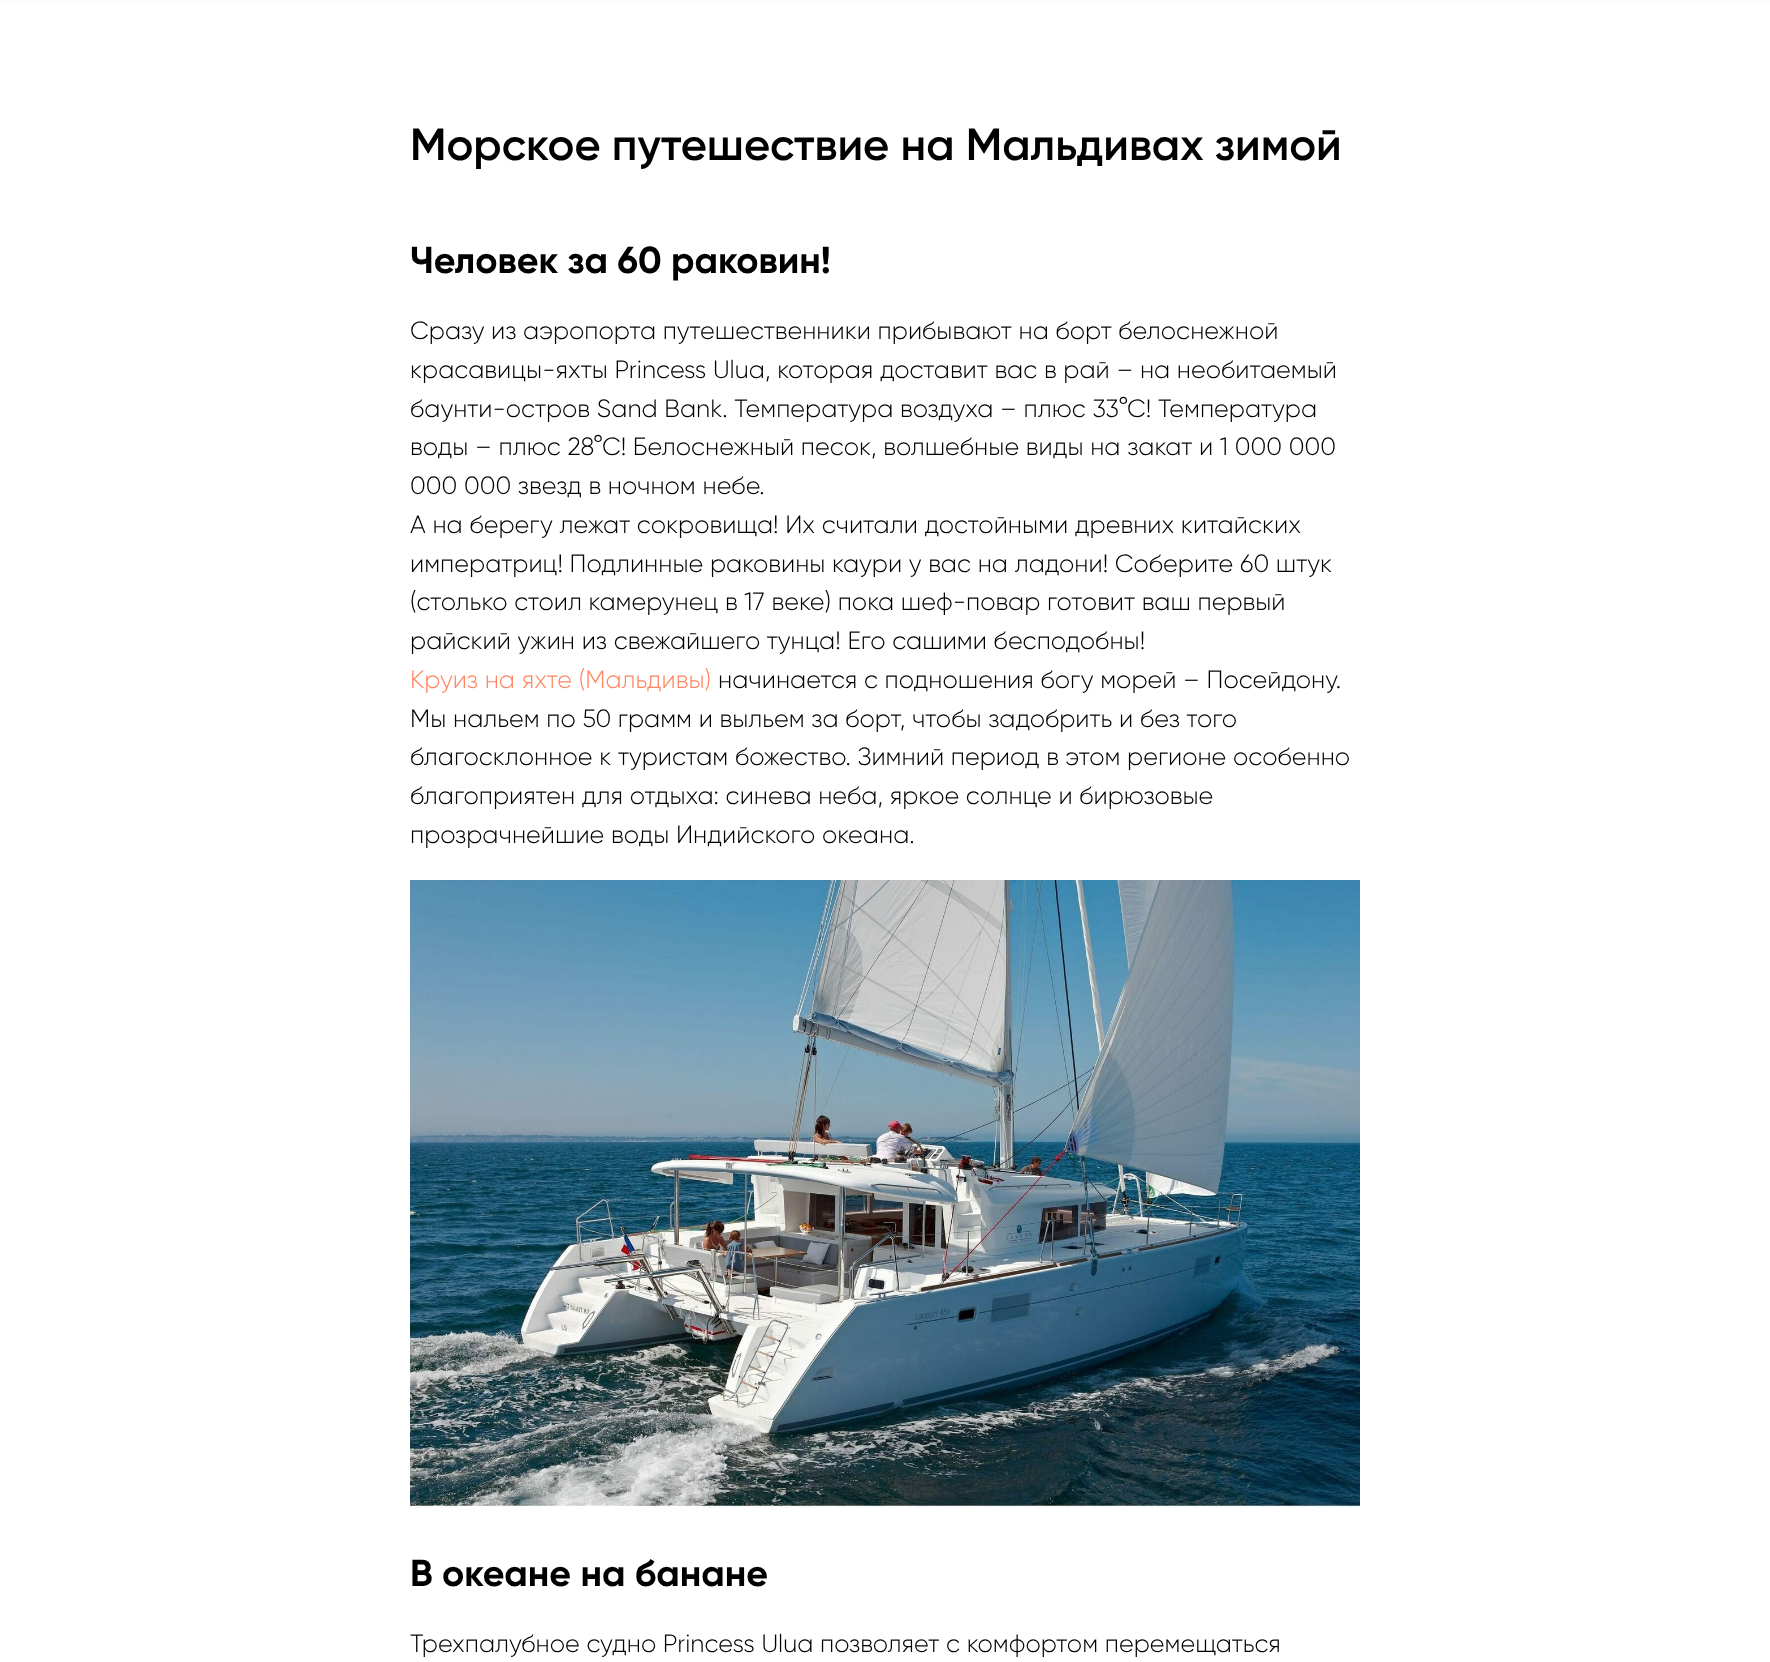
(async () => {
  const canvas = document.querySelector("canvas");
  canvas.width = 1770;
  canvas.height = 1662;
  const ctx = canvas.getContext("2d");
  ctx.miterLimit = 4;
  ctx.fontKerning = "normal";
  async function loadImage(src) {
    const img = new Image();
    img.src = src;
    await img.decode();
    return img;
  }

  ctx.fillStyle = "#ffffff";
  ctx.fillRect(0, 0, 1770, 1662);
  ctx.fillStyle = "#fbfbfb";
  ctx.fillRect(0, 0, 1770, 1);
  ctx.drawImage(await loadImage("img/1.png"), 410, 880, 950, 628);
  ctx.font = "600 45px Gilroy";
  ctx.fillStyle = "#000000";
  ctx.fillText("Морское путешествие на Мальдивах зимой", 410, 160);
  ctx.font = "bold 37.5px Gilroy";
  ctx.fillText("Человек за 60 раковин!", 410, 273);
  ctx.font = "300 25px Gilroy";
  for (const [text, x, y] of [
    ["Сразу из аэропорта путешественники прибывают на борт белоснежной", 410, 339],
    ["красавицы-яхты Princess Ulua, которая доставит вас в рай – на необитаемый", 410, 378],
    ["баунти-остров Sand Bank. Температура воздуха – плюс 33°С! Температура", 410, 417],
    ["воды – плюс 28°С! Белоснежный песок, волшебные виды на закат и 1 000 000", 410, 455],
    ["000 000 звезд в ночном небе.", 410, 494],
    ["А на берегу лежат сокровища! Их считали достойными древних китайских", 410, 533],
    ["императриц! Подлинные раковины каури у вас на ладони! Соберите 60 штук", 410, 572],
    ["(столько стоил камерунец в 17 веке) пока шеф-повар готовит ваш первый", 410, 610],
    ["райский ужин из свежайшего тунца! Его сашими бесподобны!", 410, 649],
  ]) {
    ctx.fillText(text, x, y);
  }
  ctx.fillStyle = "#ff8562";
  ctx.fillText("Круиз на яхте (Мальдивы)", 410, 688);
  ctx.fillStyle = "#000000";
  for (const [text, x, y] of [
    ["начинается с подношения богу морей – Посейдону.", 718, 688],
    ["Мы нальем по 50 грамм и выльем за борт, чтобы задобрить и без того", 410, 727],
    ["благосклонное к туристам божество. Зимний период в этом регионе особенно", 410, 765],
    ["благоприятен для отдыха: синева неба, яркое солнце и бирюзовые", 410, 804],
    ["прозрачнейшие воды Индийского океана.", 410, 843],
  ]) {
    ctx.fillText(text, x, y);
  }
  ctx.font = "bold 37.5px Gilroy";
  ctx.fillText("В океане на банане", 410, 1586);
  ctx.font = "300 25px Gilroy";
  ctx.fillText("Трехпалубное судно Princess Ulua позволяет с комфортом перемещаться", 410, 1652);
})();
